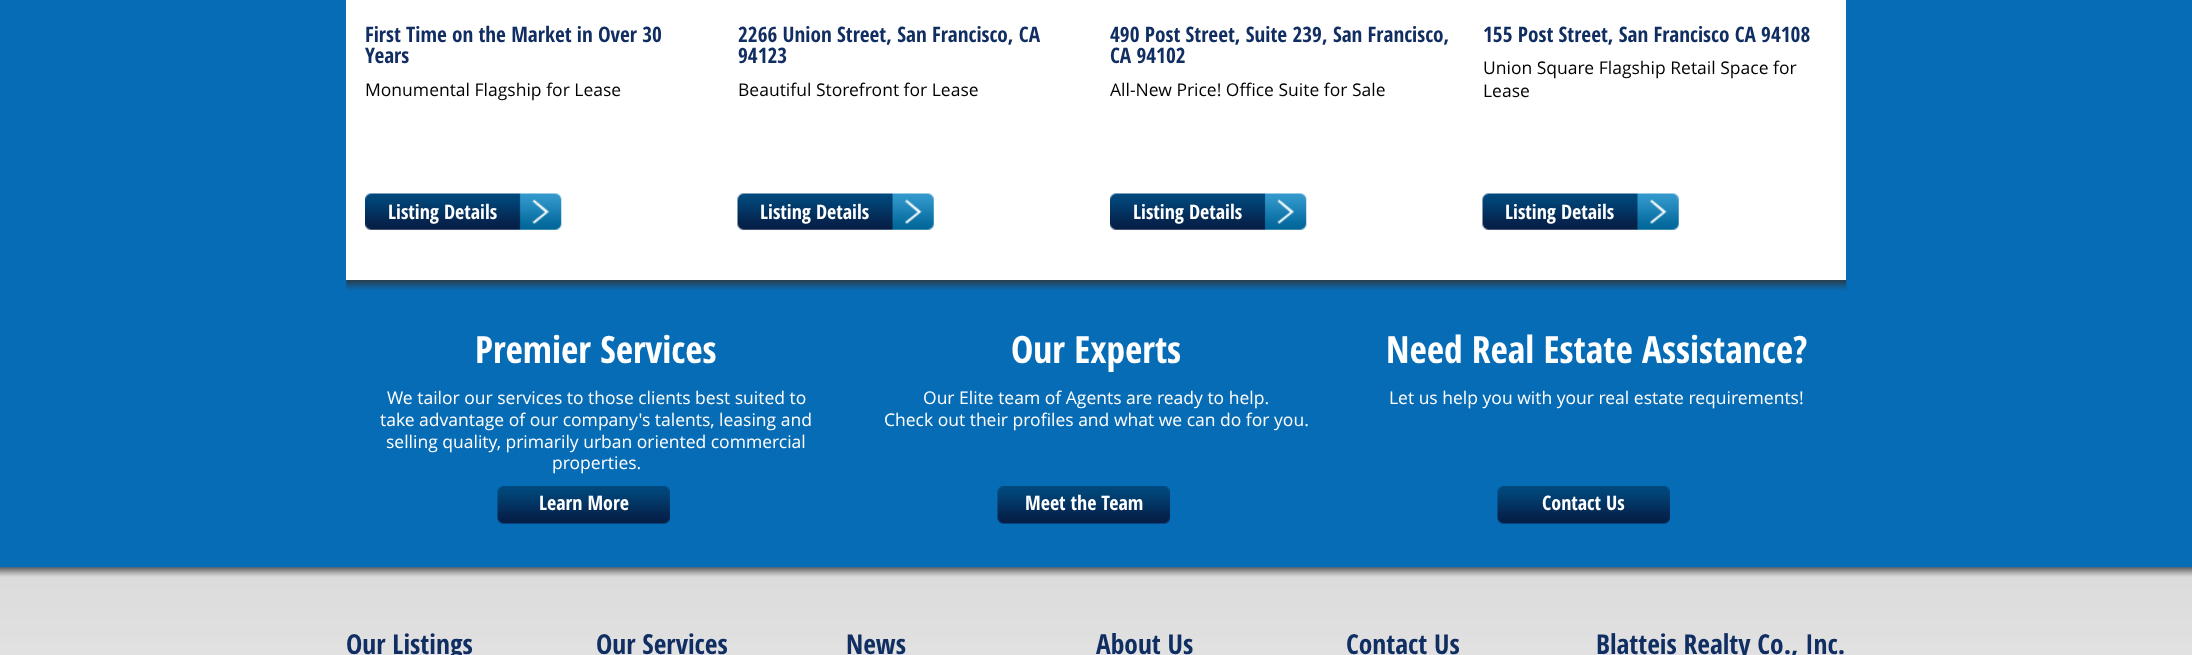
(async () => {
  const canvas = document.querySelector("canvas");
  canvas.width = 2192;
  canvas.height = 655;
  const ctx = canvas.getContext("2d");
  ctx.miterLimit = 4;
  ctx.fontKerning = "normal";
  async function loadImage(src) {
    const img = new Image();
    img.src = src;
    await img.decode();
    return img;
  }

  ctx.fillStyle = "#076cb6";
  ctx.fillRect(0, 0, 2192, 655);
  ctx.drawImage(await loadImage("img/1.png"), 346, 279, 1501, 12);
  ctx.fillStyle = "#ffffff";
  ctx.fillRect(346, 0, 1500, 280);
  ctx.drawImage(await loadImage("img/2.png"), 365, 193, 197, 37);
  ctx.drawImage(await loadImage("img/3.png"), 737, 193, 197, 37);
  ctx.drawImage(await loadImage("img/4.png"), 1110, 193, 197, 37);
  ctx.drawImage(await loadImage("img/5.png"), 1482, 193, 197, 37);
  ctx.drawImage(await loadImage("img/6.png"), 497, 486, 173, 38);
  ctx.drawImage(await loadImage("img/7.png"), 997, 486, 173, 38);
  ctx.drawImage(await loadImage("img/8.png"), 1497, 486, 173, 38);
  ctx.drawImage(await loadImage("img/9.png"), 0, 567, 2192, 88);
  ctx.font = "bold 21.25px Open Sans Condensed";
  ctx.fillStyle = "#112e62";
  ctx.fillText("First Time on the Market in Over 30", 365, 42);
  ctx.fillText("Years", 365, 63);
  ctx.font = "17.5px Open Sans";
  ctx.fillStyle = "#000000";
  ctx.fillText("Monumental Flagship for Lease", 365, 96);
  ctx.font = "bold 20px Open Sans Condensed";
  ctx.fillStyle = "#ffffff";
  ctx.fillText("Listing Details", 388, 219);
  ctx.font = "bold 21.25px Open Sans Condensed";
  ctx.fillStyle = "#112e62";
  ctx.fillText("2266 Union Street, San Francisco, CA", 738, 42);
  ctx.fillText("94123", 738, 63);
  ctx.font = "17.5px Open Sans";
  ctx.fillStyle = "#000000";
  ctx.fillText("Beautiful Storefront for Lease", 738, 96);
  ctx.font = "bold 20px Open Sans Condensed";
  ctx.fillStyle = "#ffffff";
  ctx.fillText("Listing Details", 760, 219);
  ctx.font = "bold 21.25px Open Sans Condensed";
  ctx.fillStyle = "#112e62";
  ctx.fillText("490 Post Street, Suite 239, San Francisco,", 1110, 42);
  ctx.fillText("CA 94102", 1110, 63);
  ctx.font = "17.5px Open Sans";
  ctx.fillStyle = "#000000";
  ctx.fillText("All-New Price! Office Suite for Sale", 1110, 96);
  ctx.font = "bold 20px Open Sans Condensed";
  ctx.fillStyle = "#ffffff";
  ctx.fillText("Listing Details", 1133, 219);
  ctx.font = "bold 21.25px Open Sans Condensed";
  ctx.fillStyle = "#112e62";
  ctx.fillText("155 Post Street, San Francisco CA 94108", 1483, 42);
  ctx.font = "17.5px Open Sans";
  ctx.fillStyle = "#000000";
  ctx.fillText("Union Square Flagship Retail Space for", 1483, 74);
  ctx.fillText("Lease", 1483, 97);
  ctx.font = "bold 20px Open Sans Condensed";
  ctx.fillStyle = "#ffffff";
  ctx.fillText("Listing Details", 1505, 219);
  ctx.font = "bold 37.5px Open Sans Condensed";
  ctx.fillText("Premier Services", 475, 363);
  ctx.font = "17.5px Open Sans";
  for (const [text, x, y] of [
    ["We tailor our services to those clients best suited to", 387, 404],
    ["take advantage of our company's talents, leasing and", 380, 426],
    ["selling quality, primarily urban oriented commercial", 386, 448],
    ["properties.", 552, 469],
  ]) {
    ctx.fillText(text, x, y);
  }
  ctx.font = "bold 20px Open Sans Condensed";
  ctx.fillText("Learn More", 539, 510);
  ctx.font = "bold 37.5px Open Sans Condensed";
  ctx.fillText("Our Experts", 1011, 363);
  ctx.font = "17.5px Open Sans";
  ctx.fillText("Our Elite team of Agents are ready to help.", 923, 404);
  ctx.fillText("Check out their profiles and what we can do for you.", 884, 426);
  ctx.font = "bold 20px Open Sans Condensed";
  ctx.fillText("Meet the Team", 1025, 510);
  ctx.font = "bold 37.5px Open Sans Condensed";
  ctx.fillText("Need Real Estate Assistance?", 1386, 363);
  ctx.font = "17.5px Open Sans";
  ctx.fillText("Let us help you with your real estate requirements!", 1389, 404);
  ctx.font = "bold 20px Open Sans Condensed";
  ctx.fillText("Contact Us", 1542, 510);
  ctx.font = "bold 27.5px Open Sans Condensed";
  ctx.fillStyle = "#112e62";
  for (const [text, x, y] of [
    ["Our Listings", 346, 654],
    ["Our Services", 596, 654],
    ["News", 846, 654],
    ["About Us", 1096, 654],
    ["Contact Us", 1346, 654],
    ["Blatteis Realty Co., Inc.", 1596, 654],
  ]) {
    ctx.fillText(text, x, y);
  }
})();
